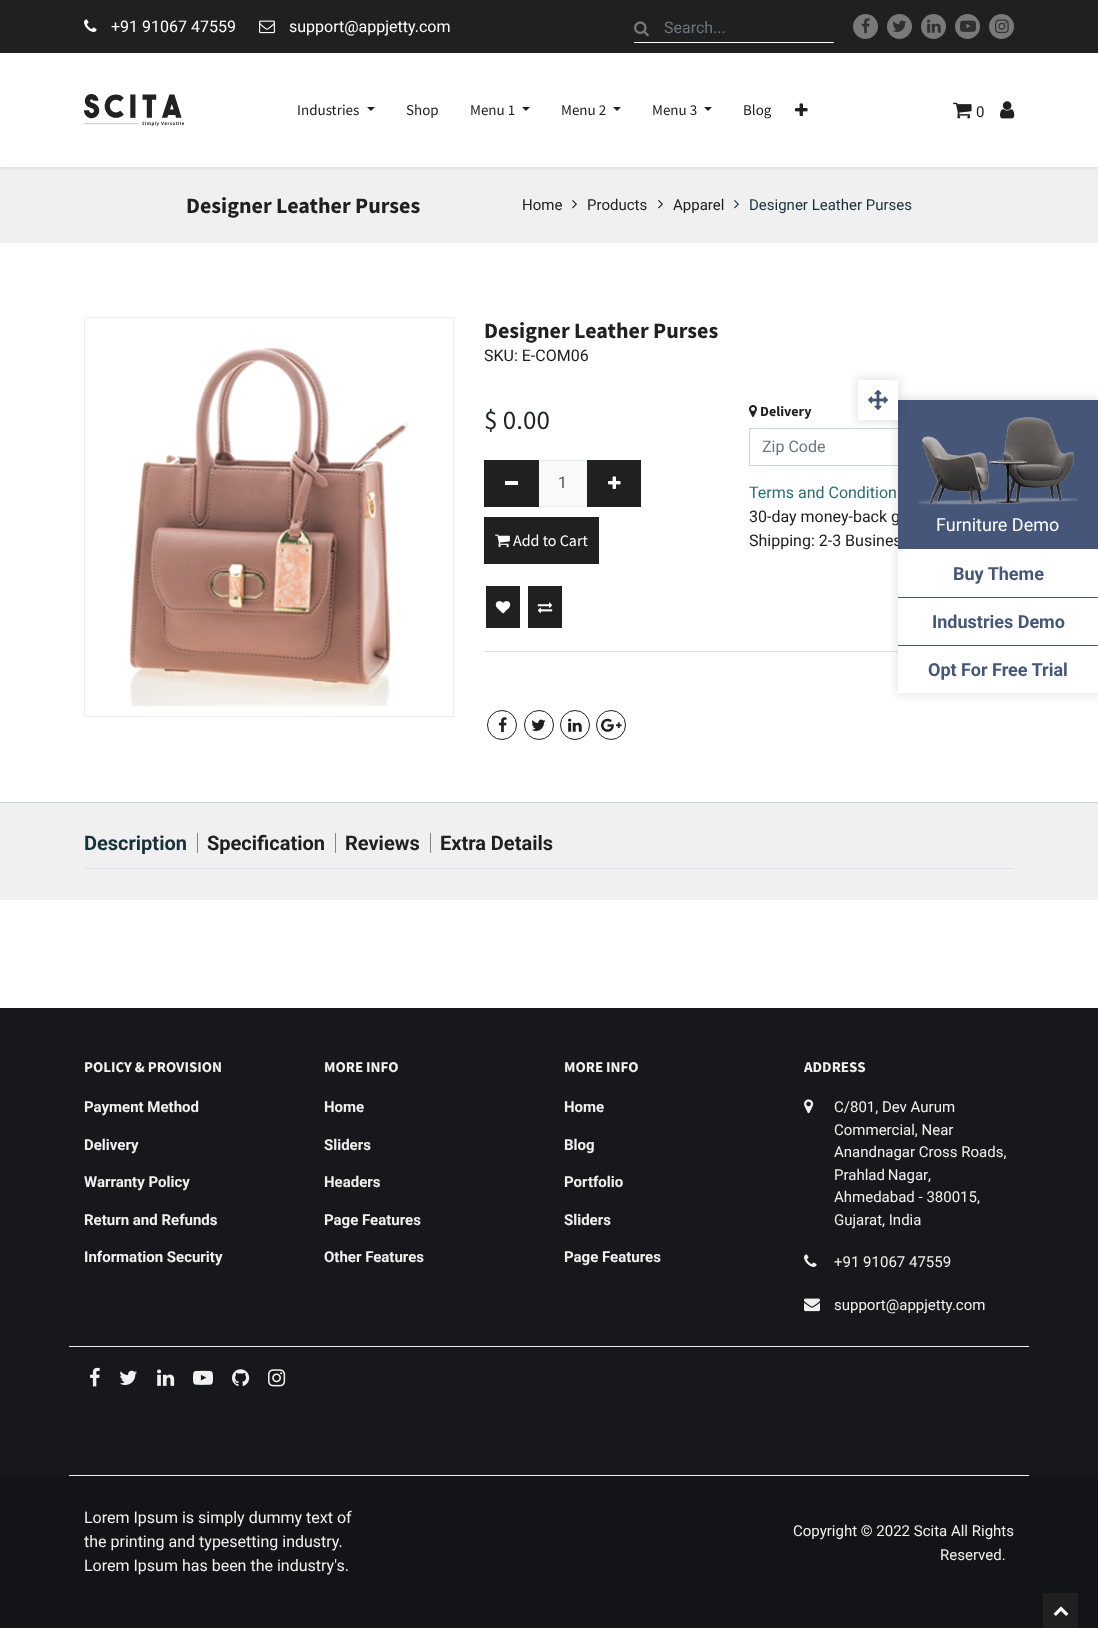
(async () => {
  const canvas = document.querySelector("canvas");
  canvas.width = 1098;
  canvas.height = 1628;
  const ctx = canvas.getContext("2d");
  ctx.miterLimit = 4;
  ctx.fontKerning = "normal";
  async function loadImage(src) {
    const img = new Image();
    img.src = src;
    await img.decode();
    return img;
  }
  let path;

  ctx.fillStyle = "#ffffff";
  ctx.fillRect(0, 0, 1098, 1628);
  ctx.fillStyle = "#202020";
  ctx.fillRect(0, 0, 1098, 53);
  ctx.drawImage(await loadImage("img/1.png"), 84, 19, 13, 13);
  ctx.drawImage(await loadImage("img/2.png"), 259, 20, 16, 14);
  ctx.drawImage(await loadImage("img/3.png"), 634, 21, 15, 16);
  ctx.fillStyle = "#ffffff";
  ctx.fillRect(634, 42, 200, 1);
  ctx.fillStyle = "#797979";
  ctx.beginPath();
  ctx.arc(865.5, 26.5, 12.5, 0, Math.PI * 2);
  ctx.fill();
  ctx.drawImage(await loadImage("img/4.png"), 861, 18, 9, 16);
  ctx.beginPath();
  ctx.arc(899.5, 26.5, 12.5, 0, Math.PI * 2);
  ctx.fill();
  ctx.drawImage(await loadImage("img/5.png"), 892, 20, 15, 12);
  ctx.beginPath();
  ctx.arc(933.5, 26.5, 12.5, 0, Math.PI * 2);
  ctx.fill();
  ctx.drawImage(await loadImage("img/6.png"), 927, 19, 14, 14);
  ctx.beginPath();
  ctx.arc(967.5, 26.5, 12.5, 0, Math.PI * 2);
  ctx.fill();
  ctx.drawImage(await loadImage("img/7.png"), 960, 20, 16, 12);
  ctx.beginPath();
  ctx.arc(1001.5, 26.5, 12.5, 0, Math.PI * 2);
  ctx.fill();
  ctx.drawImage(await loadImage("img/8.png"), 995, 19, 14, 15);
  ctx.fillStyle = "#f0f0f0";
  ctx.fillRect(0, 167, 1098, 76);
  ctx.save();
  ctx.beginPath();
  ctx.rect(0, 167, 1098, 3);
  ctx.clip();
  ctx.fillStyle = "rgba(0, 0, 0, 0.07)";
  ctx.filter = "blur(2px)";
  ctx.beginPath();
  ctx.rect(0, 55, 1098, 114);
  ctx.fill();
  ctx.filter = "none";
  ctx.restore();
  ctx.drawImage(await loadImage("img/9.png"), 84, 94, 100, 32);
  ctx.fillStyle = "#202020";
  path = new Path2D("M367 107H375L371 111Z");
  ctx.fill(path);
  path = new Path2D("M522 107H530L526 111Z");
  ctx.fill(path);
  path = new Path2D("M613 107H621L617 111Z");
  ctx.fill(path);
  path = new Path2D("M704 107H712L708 111Z");
  ctx.fill(path);
  ctx.drawImage(await loadImage("img/10.png"), 795, 103, 13, 13);
  ctx.drawImage(await loadImage("img/11.png"), 953, 102, 19, 17);
  ctx.drawImage(await loadImage("img/12.png"), 1000, 101, 15, 18);
  ctx.drawImage(await loadImage("img/13.png"), 572, 200, 5, 9);
  ctx.drawImage(await loadImage("img/13.png"), 658, 200, 5, 9);
  ctx.drawImage(await loadImage("img/14.png"), 734, 200, 5, 9);
  ctx.strokeStyle = "#eeeeee";
  ctx.strokeRect(84.5, 317.5, 369, 399);
  ctx.drawImage(await loadImage("img/15.png"), 129, 347, 280, 360);
  ctx.fillStyle = "#dee2e6";
  ctx.fillRect(484, 651, 414, 1);
  ctx.fillStyle = "#f8f9fa";
  ctx.beginPath();
  ctx.rect(538.5, 460.5, 49, 46);
  ctx.fill();
  ctx.strokeStyle = "#e9ecef";
  ctx.stroke();
  for (const [x, y, w, h, color] of [
    [484, 460, 55, 47, "#202020"],
    [505, 481, 13, 4, "#ffffff"],
    [587, 460, 54, 47, "#202020"],
  ]) {
    ctx.fillStyle = color;
    ctx.fillRect(x, y, w, h);
  }
  ctx.drawImage(await loadImage("img/16.png"), 608, 476, 13, 13);
  ctx.fillRect(484, 517, 115, 47);
  ctx.drawImage(await loadImage("img/17.png"), 495, 534, 15, 14);
  ctx.fillRect(486, 586, 34, 42);
  ctx.drawImage(await loadImage("img/18.png"), 495, 601, 16, 13);
  ctx.fillRect(528, 586, 34, 42);
  ctx.drawImage(await loadImage("img/19.png"), 537, 602, 16, 12);
  ctx.drawImage(await loadImage("img/20.png"), 749, 405, 8, 12);
  ctx.strokeStyle = "#ced4da";
  ctx.strokeRect(749.5, 428.5, 264, 37);
  ctx.beginPath();
  ctx.arc(502, 725, 14.5, 0, Math.PI * 2);
  ctx.strokeStyle = "#202020";
  ctx.stroke();
  ctx.drawImage(await loadImage("img/21.png"), 498, 717, 9, 16);
  ctx.beginPath();
  ctx.arc(539, 725, 14.5, 0, Math.PI * 2);
  ctx.stroke();
  ctx.drawImage(await loadImage("img/22.png"), 531, 719, 15, 12);
  ctx.beginPath();
  ctx.arc(575, 725, 14.5, 0, Math.PI * 2);
  ctx.stroke();
  ctx.drawImage(await loadImage("img/23.png"), 568, 718, 14, 14);
  ctx.beginPath();
  ctx.arc(611, 725, 14.5, 0, Math.PI * 2);
  ctx.stroke();
  ctx.drawImage(await loadImage("img/24.png"), 601, 718, 21, 14);
  for (const [x, y, w, h, color] of [
    [0, 803, 1098, 97, "#f0f0f0"],
    [0, 802, 1098, 1, "#ced4da"],
    [84, 868, 930, 1, "#dee2e6"],
    [197, 833, 1, 20, "#868686"],
    [335, 833, 1, 20, "#868686"],
    [430, 833, 1, 20, "#868686"],
  ]) {
    ctx.fillStyle = color;
    ctx.fillRect(x, y, w, h);
  }
  ctx.save();
  path = new Path2D("M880 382H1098V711H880ZM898 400H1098V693H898Z");
  ctx.clip(path, "evenodd");
  ctx.fillStyle = "rgba(0, 0, 0, 0.1)";
  ctx.filter = "blur(5px)";
  ctx.beginPath();
  ctx.rect(896, 398, 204, 297);
  ctx.fill();
  ctx.filter = "none";
  ctx.restore();
  for (const [x, y, w, h, color] of [
    [898, 597, 200, 1, "#455679"],
    [898, 645, 200, 1, "#455679"],
    [0, 1008, 1098, 468, "#16181b"],
  ]) {
    ctx.fillStyle = color;
    ctx.fillRect(x, y, w, h);
  }
  ctx.drawImage(await loadImage("img/27.png"), 804, 1099, 10, 15);
  ctx.drawImage(await loadImage("img/28.png"), 804, 1254, 13, 13);
  ctx.drawImage(await loadImage("img/29.png"), 804, 1298, 16, 14);
  ctx.fillStyle = "#f0f0f0";
  ctx.fillRect(69, 1346, 960, 1);
  ctx.drawImage(await loadImage("img/30.png"), 90, 1367, 10, 20);
  ctx.drawImage(await loadImage("img/31.png"), 119, 1370, 18, 15);
  ctx.drawImage(await loadImage("img/32.png"), 157, 1369, 18, 17);
  ctx.drawImage(await loadImage("img/33.png"), 193, 1370, 20, 15);
  ctx.drawImage(await loadImage("img/34.png"), 232, 1369, 18, 17);
  ctx.drawImage(await loadImage("img/35.png"), 268, 1369, 18, 18);
  for (const [x, y, w, h, color] of [
    [69, 1475, 960, 1, "#f0f0f0"],
    [0, 1476, 1098, 152, "#131417"],
    [1043, 1593, 35, 35, "#202020"],
  ]) {
    ctx.fillStyle = color;
    ctx.fillRect(x, y, w, h);
  }
  ctx.drawImage(await loadImage("img/36.png"), 1053, 1606, 16, 10);
  ctx.font = "16px Roboto";
  ctx.fillStyle = "#ffffff";
  ctx.fillText("+91 91067 47559", 111, 32);
  ctx.fillText("support@appjetty.com", 289, 32);
  ctx.fillStyle = "#6c757d";
  ctx.fillText("Search...", 664, 33);
  ctx.font = "15px Source Sans Pro";
  ctx.fillStyle = "#202020";
  for (const [text, x, y] of [
    ["Industries", 297, 115],
    ["Shop", 406, 115],
    ["Menu 1", 470, 115],
    ["Menu 2", 561, 115],
    ["Menu 3", 652, 115],
    ["Blog", 743, 115],
  ]) {
    ctx.fillText(text, x, y);
  }
  ctx.font = "15px Roboto";
  ctx.fillText("0", 976, 117);
  ctx.font = "bold 22px Source Sans Pro";
  ctx.fillText("Designer Leather Purses", 186, 213);
  ctx.font = "15px Roboto";
  for (const [text, x, y] of [
    ["Home", 522, 210],
    ["Products", 587, 210],
    ["Apparel", 673, 210],
  ]) {
    ctx.fillText(text, x, y);
  }
  ctx.fillStyle = "#17313b";
  ctx.fillText("Designer Leather Purses", 749, 210);
  ctx.font = "bold 22px Source Sans Pro";
  ctx.fillStyle = "#202020";
  ctx.fillText("Designer Leather Purses", 484, 338);
  ctx.font = "16px Roboto";
  ctx.fillText("SKU: E-COM06", 484, 361);
  ctx.font = "27px Source Sans Pro";
  ctx.fillStyle = "#212529";
  ctx.fillText("$ 0.00", 484, 429);
  ctx.font = "16px Roboto";
  ctx.fillStyle = "#495057";
  ctx.fillText("1", 558, 488);
  ctx.font = "16px Source Sans Pro";
  ctx.fillStyle = "#ffffff";
  ctx.fillText("Add to Cart", 513, 546);
  ctx.font = "bold 14px Source Sans Pro";
  ctx.fillStyle = "#202020";
  ctx.fillText("Delivery", 760, 416);
  ctx.font = "16px Roboto";
  ctx.fillStyle = "#6c757d";
  ctx.fillText("Zip Code", 762, 452);
  ctx.fillStyle = "#276e72";
  ctx.fillText("Terms and Condition", 749, 498);
  ctx.fillStyle = "#202020";
  ctx.fillText("30-day money-back g", 749, 522);
  ctx.fillText("Shipping: 2-3 Busines", 749, 546);
  ctx.font = "bold 20px Roboto";
  ctx.fillStyle = "#17313b";
  ctx.fillText("Description", 84, 850);
  ctx.fillStyle = "#202020";
  for (const [text, x, y] of [
    ["Specification", 207, 850],
    ["Reviews", 345, 850],
    ["Extra Details", 440, 850],
  ]) {
    ctx.fillText(text, x, y);
  }
  ctx.fillStyle = "#455679";
  ctx.fillRect(898, 400, 200, 149);
  ctx.fillStyle = "rgba(0, 0, 0, 0.1)";
  ctx.filter = "blur(5px)";
  ctx.beginPath();
  ctx.rect(856, 378, 44, 44);
  ctx.fill();
  ctx.filter = "none";
  ctx.fillStyle = "#ffffff";
  ctx.fillRect(858, 380, 40, 40);
  ctx.drawImage(await loadImage("img/25.png"), 868, 390, 20, 20);
  ctx.drawImage(await loadImage("img/26.png"), 918, 417, 160, 88);
  ctx.font = "18px Roboto";
  ctx.fillText("Furniture Demo", 936, 531);
  ctx.font = "bold 18px Roboto";
  ctx.fillStyle = "#455679";
  for (const [text, x, y] of [
    ["Buy Theme", 953, 580],
    ["Industries Demo", 932, 628],
    ["Opt For Free Trial", 928, 676],
  ]) {
    ctx.fillText(text, x, y);
  }
  ctx.font = "bold 15px Source Sans Pro";
  ctx.fillStyle = "#f0f0f0";
  ctx.fillText("POLICY & PROVISION", 84, 1072);
  ctx.font = "bold 15px Roboto";
  for (const [text, x, y] of [
    ["Payment Method", 84, 1112],
    ["Delivery", 84, 1150],
    ["Warranty Policy", 84, 1187],
    ["Return and Refunds", 84, 1225],
    ["Information Security", 84, 1262],
  ]) {
    ctx.fillText(text, x, y);
  }
  ctx.font = "bold 15px Source Sans Pro";
  ctx.fillText("MORE INFO", 324, 1072);
  ctx.font = "bold 15px Roboto";
  for (const [text, x, y] of [
    ["Home", 324, 1112],
    ["Sliders", 324, 1150],
    ["Headers", 324, 1187],
    ["Page Features", 324, 1225],
    ["Other Features", 324, 1262],
  ]) {
    ctx.fillText(text, x, y);
  }
  ctx.font = "bold 15px Source Sans Pro";
  ctx.fillText("MORE INFO", 564, 1072);
  ctx.font = "bold 15px Roboto";
  for (const [text, x, y] of [
    ["Home", 564, 1112],
    ["Blog", 564, 1150],
    ["Portfolio", 564, 1187],
    ["Sliders", 564, 1225],
    ["Page Features", 564, 1262],
  ]) {
    ctx.fillText(text, x, y);
  }
  ctx.font = "bold 15px Source Sans Pro";
  ctx.fillText("ADDRESS", 804, 1072);
  ctx.font = "15px Roboto";
  for (const [text, x, y] of [
    ["C/801, Dev Aurum", 834, 1112],
    ["Commercial, Near", 834, 1135],
    ["Anandnagar Cross Roads,", 834, 1157],
  ]) {
    ctx.fillText(text, x, y);
  }
  ctx.wordSpacing = "-1px";
  ctx.fillText("Prahlad Nagar", 834, 1180);
  ctx.wordSpacing = "0px";
  for (const [text, x, y] of [
    [",", 928, 1180],
    ["Ahmedabad - 380015,", 834, 1202],
    ["Gujarat, India", 834, 1225],
    ["+91 91067 47559", 834, 1267],
    ["support@appjetty.com", 834, 1310],
  ]) {
    ctx.fillText(text, x, y);
  }
  ctx.font = "16px Roboto";
  for (const [text, x, y] of [
    ["Lorem Ipsum is simply dummy text of", 84, 1523],
    ["the printing and typesetting industry.", 84, 1547],
    ["Lorem Ipsum has been the industry's.", 84, 1571],
  ]) {
    ctx.fillText(text, x, y);
  }
  ctx.font = "15px Roboto";
  ctx.fillText("Copyright © 2022 Scita All Rights", 793, 1536);
  ctx.fillText("Reserved.", 940, 1560);
})();
